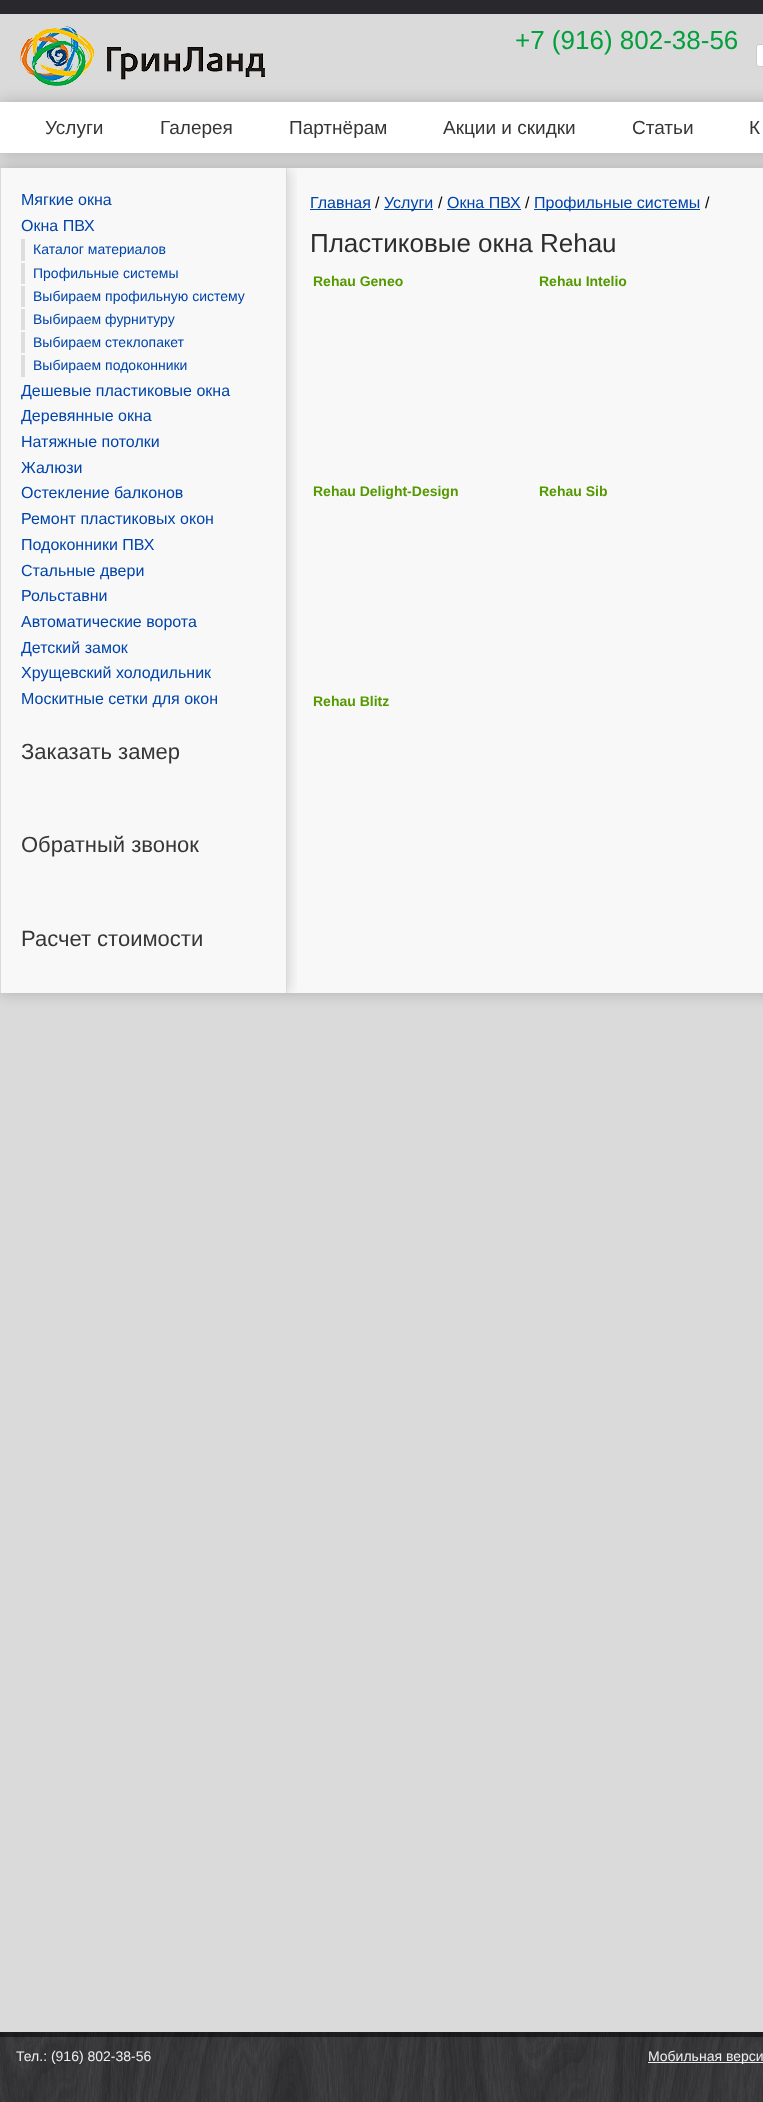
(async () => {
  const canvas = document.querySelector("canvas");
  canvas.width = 763;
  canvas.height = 2102;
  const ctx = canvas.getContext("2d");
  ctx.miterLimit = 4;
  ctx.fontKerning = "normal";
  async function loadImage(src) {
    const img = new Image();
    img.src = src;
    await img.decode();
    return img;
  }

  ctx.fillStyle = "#d9dad9";
  ctx.fillRect(0, 0, 763, 2102);
  ctx.fillStyle = "#29282c";
  ctx.fillRect(0, 0, 763, 14);
  ctx.fillStyle = "rgba(0, 0, 0, 0.2)";
  ctx.filter = "blur(7.5px)";
  ctx.beginPath();
  ctx.rect(0, 102, 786, 51);
  ctx.fill();
  ctx.filter = "none";
  ctx.drawImage(await loadImage("img/1.png"), 20, 26, 245, 60);
  ctx.fillStyle = "#ffffff";
  ctx.beginPath();
  ctx.roundRect(756.5, 44.5, 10, 22, 2.5);
  ctx.fill();
  ctx.strokeStyle = "#cacaca";
  ctx.stroke();
  ctx.fillRect(0, 102, 763, 51);
  ctx.fillStyle = "rgba(0, 0, 0, 0.2)";
  ctx.filter = "blur(7.5px)";
  ctx.beginPath();
  ctx.rect(0, 168, 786, 825);
  ctx.fill();
  ctx.filter = "none";
  ctx.fillStyle = "#f8f8f8";
  ctx.fillRect(1, 168, 762, 825);
  ctx.save();
  ctx.beginPath();
  ctx.rect(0, 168, 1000, 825);
  ctx.clip();
  ctx.beginPath();
  ctx.rect(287, 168, 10, 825);
  ctx.clip();
  ctx.fillStyle = "rgba(0, 0, 0, 0.2)";
  ctx.filter = "blur(7.5px)";
  ctx.beginPath();
  ctx.rect(0, 168, 287, 825);
  ctx.fill();
  ctx.filter = "none";
  ctx.restore();
  for (const [x, y, w, h, color] of [
    [286, 168, 1, 825, "#dadada"],
    [0, 168, 1, 825, "#dadada"],
    [21, 239, 4, 22, "#dddddd"],
    [21, 263, 4, 21, "#dddddd"],
    [21, 286, 4, 21, "#dddddd"],
    [21, 309, 4, 21, "#dddddd"],
    [21, 332, 4, 21, "#dddddd"],
    [21, 355, 4, 22, "#dddddd"],
    [310, 209, 61, 1, "#0044aa"],
    [384, 209, 49, 1, "#0044aa"],
    [447, 209, 74, 1, "#0044aa"],
    [534, 209, 166, 1, "#0044aa"],
  ]) {
    ctx.fillStyle = color;
    ctx.fillRect(x, y, w, h);
  }
  ctx.drawImage(await loadImage("img/2.png"), 0, 2032, 763, 70);
  ctx.fillStyle = "#eeeeee";
  ctx.fillRect(648, 2062, 115, 1);
  ctx.font = "26px Liberation Sans";
  ctx.fillStyle = "#039f3d";
  ctx.fillText("+7 (916) 802-38-56", 515, 49);
  ctx.font = "19px Liberation Sans";
  ctx.fillStyle = "#363538";
  for (const [text, x, y] of [
    ["Услуги", 45, 134],
    ["Галерея", 160, 134],
    ["Партнёрам", 289, 134],
    ["Акции и скидки", 443, 134],
    ["Статьи", 632, 134],
    ["К", 749, 134],
  ]) {
    ctx.fillText(text, x, y);
  }
  ctx.font = "16px Liberation Sans";
  ctx.fillStyle = "#0044aa";
  ctx.fillText("Мягкие окна", 21, 205);
  ctx.fillText("Окна ПВХ", 21, 231);
  ctx.font = "14px Liberation Sans";
  for (const [text, x, y] of [
    ["Каталог материалов", 33, 254],
    ["Профильные системы", 33, 278],
    ["Выбираем профильную систему", 33, 301],
    ["Выбираем фурнитуру", 33, 324],
    ["Выбираем стеклопакет", 33, 347],
    ["Выбираем подоконники", 33, 370],
  ]) {
    ctx.fillText(text, x, y);
  }
  ctx.font = "16px Liberation Sans";
  for (const [text, x, y] of [
    ["Дешевые пластиковые окна", 21, 396],
    ["Деревянные окна", 21, 421],
    ["Натяжные потолки", 21, 447],
    ["Жалюзи", 21, 473],
    ["Остекление балконов", 21, 498],
    ["Ремонт пластиковых окон", 21, 524],
    ["Подоконники ПВХ", 21, 550],
    ["Стальные двери", 21, 576],
    ["Рольставни", 21, 601],
    ["Автоматические ворота", 21, 627],
    ["Детский замок", 21, 653],
    ["Хрущевский холодильник", 21, 678],
    ["Москитные сетки для окон", 21, 704],
  ]) {
    ctx.fillText(text, x, y);
  }
  ctx.font = "22px Liberation Sans";
  ctx.fillStyle = "#363538";
  for (const [text, x, y] of [
    ["Заказать замер", 21, 759],
    ["Обратный звонок", 21, 852],
    ["Расчет стоимости", 21, 946],
  ]) {
    ctx.fillText(text, x, y);
  }
  ctx.font = "16px Liberation Sans";
  ctx.fillStyle = "#0044aa";
  ctx.fillText("Главная", 310, 208);
  ctx.fillStyle = "#000000";
  ctx.fillText("/", 375, 208);
  ctx.fillStyle = "#0044aa";
  ctx.fillText("Услуги", 384, 208);
  ctx.fillStyle = "#000000";
  ctx.fillText("/", 438, 208);
  ctx.fillStyle = "#0044aa";
  ctx.fillText("Окна ПВХ", 447, 208);
  ctx.fillStyle = "#000000";
  ctx.fillText("/", 525, 208);
  ctx.fillStyle = "#0044aa";
  ctx.fillText("Профильные системы", 534, 208);
  ctx.fillStyle = "#000000";
  ctx.fillText("/", 705, 208);
  ctx.font = "26px Liberation Sans";
  ctx.fillStyle = "#2d2d2d";
  ctx.fillText("Пластиковые окна Rehau", 310, 252);
  ctx.font = "bold 14px Liberation Sans";
  ctx.fillStyle = "#559900";
  for (const [text, x, y] of [
    ["Rehau Geneo", 313, 286],
    ["Rehau Intelio", 539, 286],
    ["Rehau Delight-Design", 313, 496],
    ["Rehau Sib", 539, 496],
    ["Rehau Blitz", 313, 706],
  ]) {
    ctx.fillText(text, x, y);
  }
  ctx.font = "14px Liberation Sans";
  ctx.fillStyle = "#eeeeee";
  ctx.fillText("Тел.: (916) 802-38-56", 16, 2061);
  ctx.fillText("Мобильная верси", 648, 2061);
})();
